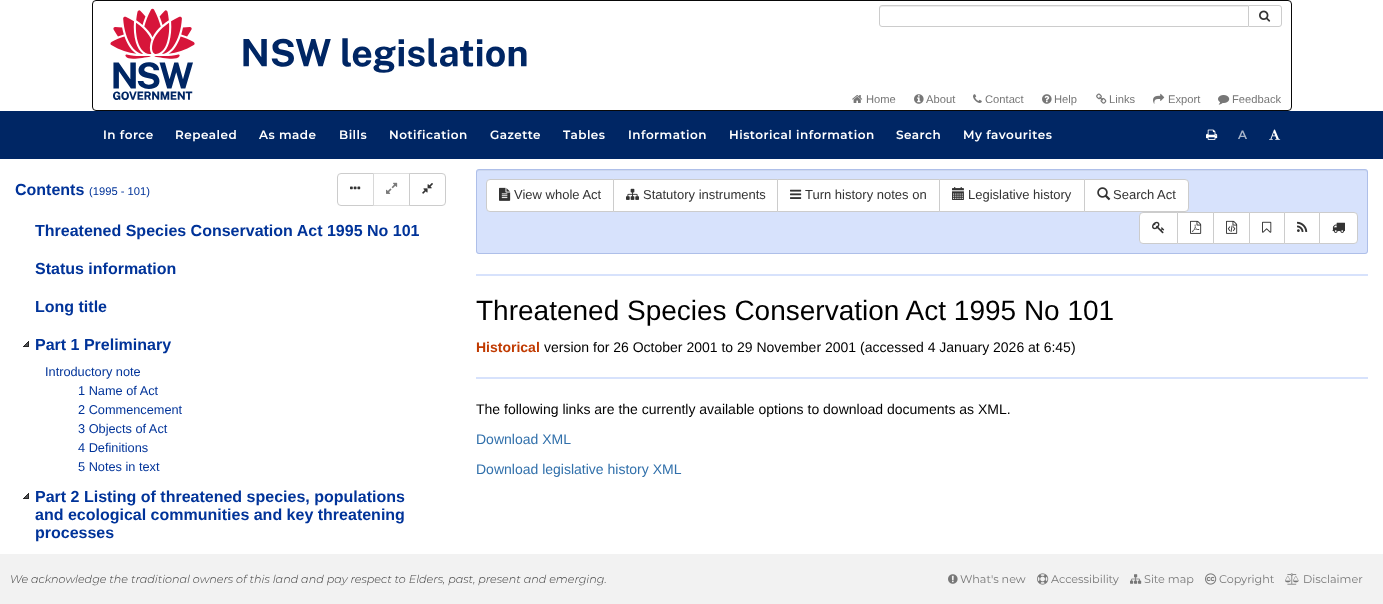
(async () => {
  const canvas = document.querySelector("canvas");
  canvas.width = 1383;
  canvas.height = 604;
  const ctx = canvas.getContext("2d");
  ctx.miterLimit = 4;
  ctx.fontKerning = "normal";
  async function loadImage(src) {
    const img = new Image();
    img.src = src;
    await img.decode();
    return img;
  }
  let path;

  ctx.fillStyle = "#ffffff";
  ctx.fillRect(0, 0, 1383, 604);
  ctx.beginPath();
  ctx.roundRect(92.5, 0.5, 1199, 110, 3.5);
  ctx.strokeStyle = "#080808";
  ctx.stroke();
  ctx.drawImage(await loadImage("img/1.png"), 110, 8, 417, 92);
  ctx.beginPath();
  ctx.roundRect(1248.5, 5.5, 33, 21, [0, 2.5, 2.5, 0]);
  ctx.strokeStyle = "#cccccc";
  ctx.stroke();
  ctx.beginPath();
  ctx.roundRect(879, 5, 370, 22, [3, 0, 0, 3]);
  ctx.fill();
  ctx.fillStyle = "#ececec";
  path = new Path2D("M882 7H1248V6H882C880 6 880 8 880 9C880 8 881 7 882 7Z");
  ctx.fill(path);
  ctx.beginPath();
  ctx.roundRect(879.5, 5.5, 369, 21, [2.5, 0, 0, 2.5]);
  ctx.stroke();
  ctx.drawImage(await loadImage("img/2.png"), 1259, 10, 12, 12);
  ctx.drawImage(await loadImage("img/3.png"), 852, 95, 11, 8);
  ctx.drawImage(await loadImage("img/4.png"), 914, 94, 10, 10);
  ctx.drawImage(await loadImage("img/5.png"), 973, 94, 9, 9);
  ctx.drawImage(await loadImage("img/6.png"), 1042, 94, 10, 10);
  ctx.drawImage(await loadImage("img/7.png"), 1096, 93, 11, 11);
  ctx.drawImage(await loadImage("img/8.png"), 1153, 93, 12, 11);
  ctx.drawImage(await loadImage("img/9.png"), 1218, 95, 12, 10);
  ctx.fillStyle = "#002664";
  ctx.fillRect(0, 111, 1383, 48);
  ctx.drawImage(await loadImage("img/10.png"), 1206, 129, 12, 11);
  ctx.drawImage(await loadImage("img/11.png"), 1269, 129, 12, 11);
  ctx.beginPath();
  ctx.roundRect(337.5, 173.5, 36, 32, [3.5, 0, 0, 3.5]);
  ctx.stroke();
  ctx.drawImage(await loadImage("img/12.png"), 350, 186, 11, 4);
  ctx.fillStyle = "rgba(255, 255, 255, 0.65)";
  ctx.fillRect(373, 173, 1, 33);
  ctx.strokeStyle = "rgba(204, 204, 204, 0.65)";
  ctx.strokeRect(373.5, 173.5, 36, 32);
  ctx.drawImage(await loadImage("img/13.png"), 386, 182, 12, 12);
  ctx.fillStyle = "#ffffff";
  ctx.beginPath();
  ctx.roundRect(409.5, 173.5, 36, 32, [0, 3.5, 3.5, 0]);
  ctx.fill();
  ctx.strokeStyle = "#cccccc";
  ctx.stroke();
  ctx.drawImage(await loadImage("img/14.png"), 422, 183, 11, 11);
  ctx.drawImage(await loadImage("img/15.png"), 23, 341, 6, 6);
  ctx.drawImage(await loadImage("img/15.png"), 23, 493, 6, 6);
  ctx.fillStyle = "#d7e2fc";
  ctx.beginPath();
  ctx.roundRect(476, 169, 892, 85, 3);
  ctx.fill();
  ctx.fillStyle = "#ccd7ef";
  path = new Path2D("M479 171H1365C1366 171 1367 172 1367 173C1367 172 1367 170 1365 170H479C477 170 477 172 477 173C477 172 478 171 479 171Z");
  ctx.fill(path);
  ctx.beginPath();
  ctx.roundRect(476.5, 169.5, 891, 84, 2.5);
  ctx.strokeStyle = "#aebfe9";
  ctx.stroke();
  ctx.fillStyle = "#ffffff";
  ctx.beginPath();
  ctx.roundRect(486.5, 179.5, 127, 32, [3.5, 0, 0, 3.5]);
  ctx.fill();
  ctx.strokeStyle = "#cccccc";
  ctx.stroke();
  ctx.drawImage(await loadImage("img/16.png"), 499, 187, 12, 14);
  ctx.beginPath();
  ctx.rect(613.5, 179.5, 164, 32);
  ctx.fill();
  ctx.stroke();
  ctx.drawImage(await loadImage("img/17.png"), 626, 188, 13, 12);
  ctx.beginPath();
  ctx.rect(777.5, 179.5, 162, 32);
  ctx.fill();
  ctx.stroke();
  ctx.drawImage(await loadImage("img/18.png"), 790, 189, 12, 10);
  ctx.beginPath();
  ctx.rect(939.5, 179.5, 145, 32);
  ctx.fill();
  ctx.stroke();
  ctx.drawImage(await loadImage("img/19.png"), 952, 187, 12, 13);
  ctx.beginPath();
  ctx.roundRect(1084.5, 179.5, 104, 32, [0, 3.5, 3.5, 0]);
  ctx.fill();
  ctx.stroke();
  ctx.drawImage(await loadImage("img/20.png"), 1097, 187, 14, 14);
  ctx.beginPath();
  ctx.roundRect(1139.5, 212.5, 38, 31, [3.5, 0, 0, 3.5]);
  ctx.fill();
  ctx.stroke();
  ctx.drawImage(await loadImage("img/21.png"), 1152, 221, 13, 13);
  ctx.beginPath();
  ctx.rect(1177.5, 212.5, 36, 31);
  ctx.fill();
  ctx.stroke();
  ctx.drawImage(await loadImage("img/22.png"), 1190, 220, 12, 14);
  ctx.beginPath();
  ctx.rect(1213.5, 212.5, 36, 31);
  ctx.fill();
  ctx.stroke();
  ctx.drawImage(await loadImage("img/23.png"), 1226, 220, 12, 14);
  ctx.beginPath();
  ctx.rect(1249.5, 212.5, 35, 31);
  ctx.fill();
  ctx.stroke();
  ctx.drawImage(await loadImage("img/24.png"), 1262, 221, 10, 12);
  ctx.beginPath();
  ctx.rect(1284.5, 212.5, 35, 31);
  ctx.fill();
  ctx.stroke();
  ctx.drawImage(await loadImage("img/25.png"), 1297, 221, 11, 11);
  ctx.beginPath();
  ctx.roundRect(1319.5, 212.5, 38, 31, [0, 3.5, 3.5, 0]);
  ctx.fill();
  ctx.stroke();
  ctx.drawImage(await loadImage("img/26.png"), 1332, 222, 13, 11);
  for (const [x, y, w, h, color] of [
    [476, 274, 892, 2, "#d7e2fc"],
    [476, 377, 892, 2, "#d7e2fc"],
    [0, 554, 1383, 50, "#f2f2f2"],
  ]) {
    ctx.fillStyle = color;
    ctx.fillRect(x, y, w, h);
  }
  ctx.drawImage(await loadImage("img/27.png"), 948, 574, 10, 10);
  ctx.drawImage(await loadImage("img/28.png"), 1037, 573, 12, 12);
  ctx.drawImage(await loadImage("img/29.png"), 1130, 574, 12, 10);
  ctx.drawImage(await loadImage("img/30.png"), 1205, 573, 12, 12);
  ctx.drawImage(await loadImage("img/31.png"), 1285, 573, 14, 12);
  ctx.font = "11.2px Liberation Sans";
  ctx.fillStyle = "#777777";
  for (const [text, x, y] of [
    ["Home", 866, 103],
    ["About", 926, 103],
    ["Contact", 985, 103],
    ["Help", 1054, 103],
    ["Links", 1109, 103],
    ["Export", 1168, 103],
    ["Feedback", 1232, 103],
  ]) {
    ctx.fillText(text, x, y);
  }
  ctx.letterSpacing = "0.5px";
  ctx.font = "600 12px Montserrat";
  ctx.fillStyle = "#ffffff";
  for (const [text, x, y] of [
    ["In force", 103, 139],
    ["Repealed", 175, 139],
    ["As made", 259, 139],
    ["Bills", 339, 139],
    ["Notification", 389, 139],
    ["Gazette", 490, 139],
    ["Tables", 563, 139],
    ["Information", 628, 139],
    ["Historical information", 729, 139],
    ["Search", 896, 139],
    ["My favourites", 963, 139],
  ]) {
    ctx.fillText(text, x, y);
  }
  ctx.fillStyle = "#a6b3c9";
  ctx.fillText("A", 1238, 139);
  ctx.letterSpacing = "0px";
  ctx.font = "bold 16px Liberation Sans";
  ctx.fillStyle = "#003399";
  ctx.fillText("Contents", 15, 195);
  ctx.font = "11.2px Liberation Sans";
  ctx.fillText("(1995 - 101)", 89, 195);
  ctx.font = "bold 16px Liberation Sans";
  for (const [text, x, y] of [
    ["Threatened Species Conservation Act 1995 No 101", 35, 236],
    ["Status information", 35, 274],
    ["Long title", 35, 312],
    ["Part 1 Preliminary", 35, 350],
  ]) {
    ctx.fillText(text, x, y);
  }
  ctx.font = "12.75px Liberation Sans";
  for (const [text, x, y] of [
    ["Introductory note", 45, 376],
    ["1 Name of Act", 78, 395],
    ["2 Commencement", 78, 414],
    ["3 Objects of Act", 78, 433],
    ["4 Definitions", 78, 452],
    ["5 Notes in text", 78, 471],
  ]) {
    ctx.fillText(text, x, y);
  }
  ctx.font = "bold 16px Liberation Sans";
  for (const [text, x, y] of [
    ["Part 2 Listing of threatened species, populations", 35, 502],
    ["and ecological communities and key threatening", 35, 520],
    ["processes", 35, 538],
  ]) {
    ctx.fillText(text, x, y);
  }
  ctx.font = "13px Liberation Sans";
  ctx.fillStyle = "#333333";
  for (const [text, x, y] of [
    ["View whole Act", 514, 199],
    ["Statutory instruments", 643, 199],
    ["Turn history notes on", 805, 199],
    ["Legislative history", 968, 199],
    ["Search Act", 1113, 199],
  ]) {
    ctx.fillText(text, x, y);
  }
  ctx.font = "28px Liberation Sans";
  ctx.fillStyle = "#000000";
  ctx.fillText("Threatened Species Conservation Act 1995 No 101", 476, 320);
  ctx.font = "bold 14px Liberation Sans";
  ctx.fillStyle = "#c03a00";
  ctx.fillText("Historical", 476, 352);
  ctx.font = "14px Liberation Sans";
  ctx.fillStyle = "#000000";
  ctx.fillText("version for 26 October 2001 to 29 November 2001 (accessed 4 January 2026 at 6:45)", 544, 352);
  ctx.fillText("The following links are the currently available options to download documents as XML.", 476, 414);
  ctx.fillStyle = "#3170ab";
  ctx.fillText("Download XML", 476, 444);
  ctx.fillText("Download legislative history XML", 476, 474);
  ctx.font = "italic 300 11.2px Montserrat";
  ctx.fillStyle = "#3d3d3d";
  ctx.fillText("We acknowledge the traditional owners of this land and pay respect to Elders, past, present and emerging.", 10, 583);
  ctx.font = "11.2px Montserrat";
  ctx.fillStyle = "#777777";
  for (const [text, x, y] of [
    ["What's new", 960, 583],
    ["Accessibility", 1051, 583],
    ["Site map", 1144, 583],
    ["Copyright", 1219, 583],
    ["Disclaimer", 1303, 583],
  ]) {
    ctx.fillText(text, x, y);
  }
})();
